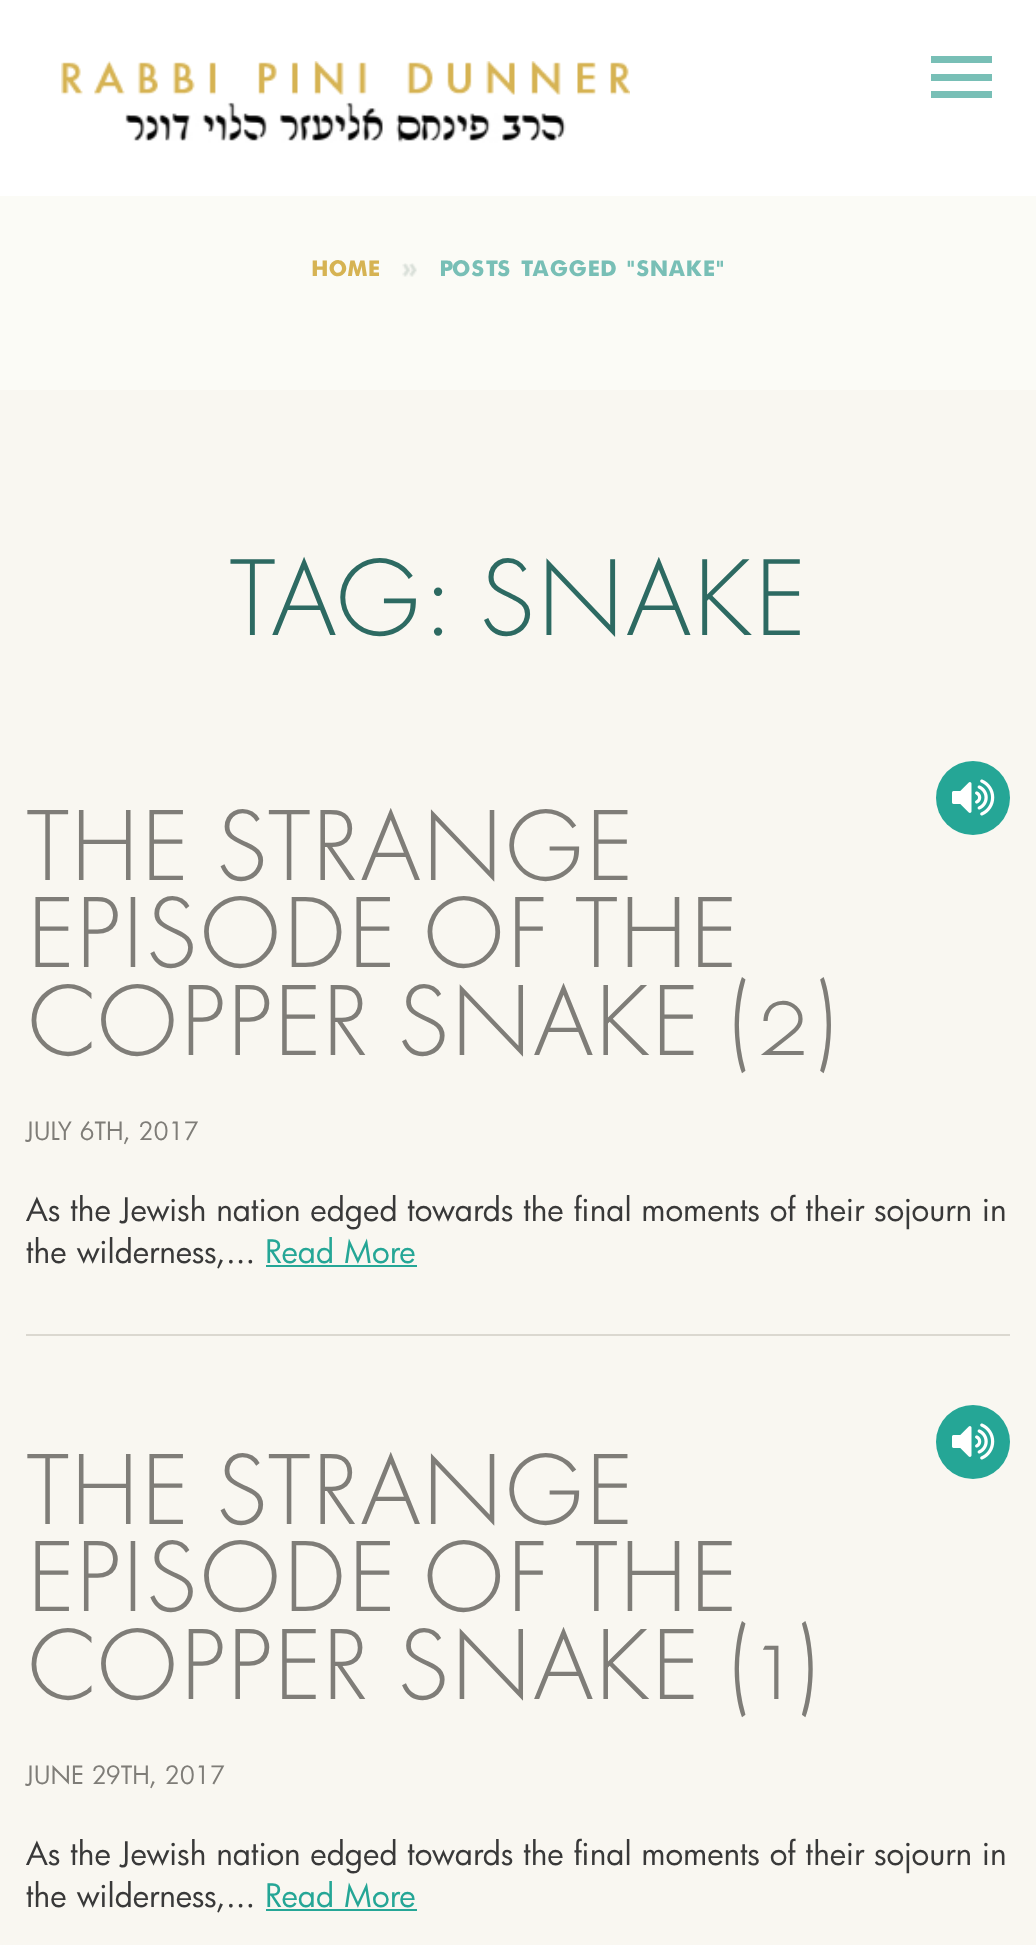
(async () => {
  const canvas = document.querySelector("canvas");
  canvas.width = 1036;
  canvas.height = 1945;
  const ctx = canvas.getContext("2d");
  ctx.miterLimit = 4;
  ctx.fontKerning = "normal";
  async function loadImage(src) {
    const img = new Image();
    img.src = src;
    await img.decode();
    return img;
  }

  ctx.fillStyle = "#f9f7f1";
  ctx.fillRect(0, 0, 1036, 1945);
  ctx.fillStyle = "#ffffff";
  ctx.fillRect(0, 0, 1036, 196);
  ctx.drawImage(await loadImage("img/1.png"), 61, 61, 569, 34);
  ctx.drawImage(await loadImage("img/2.png"), 125, 102, 441, 41);
  for (const [x, y, w, h, color] of [
    [931, 74, 61, 7, "#78bfb6"],
    [931, 56, 61, 7, "#78bfb6"],
    [931, 91, 61, 7, "#78bfb6"],
    [0, 196, 1036, 194, "#fbfbf6"],
  ]) {
    ctx.fillStyle = color;
    ctx.fillRect(x, y, w, h);
  }
  ctx.drawImage(await loadImage("img/3.png"), 402, 263, 15, 14);
  ctx.fillStyle = "#dbd8d0";
  ctx.fillRect(26, 1334, 984, 2);
  ctx.fillStyle = "#25a696";
  ctx.beginPath();
  ctx.arc(973, 798, 37, 0, Math.PI * 2);
  ctx.fill();
  ctx.drawImage(await loadImage("img/4.png"), 952, 779, 43, 37);
  ctx.fillRect(266, 1265, 151, 2);
  ctx.beginPath();
  ctx.arc(973, 1442, 37, 0, Math.PI * 2);
  ctx.fill();
  ctx.drawImage(await loadImage("img/4.png"), 952, 1423, 43, 37);
  ctx.fillRect(266, 1909, 151, 2);
  ctx.font = "bold 24.5px Futura";
  ctx.fillStyle = "#d6b353";
  ctx.fillText("HOME", 311, 276);
  ctx.fillStyle = "#78bfb6";
  ctx.fillText("POSTS TAGGED \"SNAKE\"", 439, 276);
  ctx.font = "300 113.75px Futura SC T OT";
  ctx.fillStyle = "#2d6a62";
  ctx.fillText("TAG: SNAKE", 229, 635);
  ctx.font = "300 105px Futura SC T OT";
  ctx.fillStyle = "#7f7d78";
  for (const [text, x, y] of [
    ["THE STRANGE", 26, 880],
    ["EPISODE OF THE", 26, 967],
    ["COPPER SNAKE (2)", 26, 1055],
  ]) {
    ctx.fillText(text, x, y);
  }
  ctx.font = "24.5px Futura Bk";
  ctx.fillText("JULY 6TH, 2017", 26, 1140);
  ctx.font = "31.5px Futura Bk";
  ctx.fillStyle = "#393939";
  ctx.fillText("As the Jewish nation edged towards the final moments of their sojourn in", 26, 1221);
  ctx.fillText("the wilderness,...", 26, 1263);
  ctx.fillStyle = "#25a696";
  ctx.fillText("Read More", 265, 1263);
  ctx.font = "300 105px Futura SC T OT";
  ctx.fillStyle = "#7f7d78";
  for (const [text, x, y] of [
    ["THE STRANGE", 26, 1524],
    ["EPISODE OF THE", 26, 1611],
    ["COPPER SNAKE (1)", 26, 1699],
  ]) {
    ctx.fillText(text, x, y);
  }
  ctx.font = "24.5px Futura Bk";
  ctx.fillText("JUNE 29TH, 2017", 26, 1784);
  ctx.font = "31.5px Futura Bk";
  ctx.fillStyle = "#393939";
  ctx.fillText("As the Jewish nation edged towards the final moments of their sojourn in", 26, 1865);
  ctx.fillText("the wilderness,...", 26, 1907);
  ctx.fillStyle = "#25a696";
  ctx.fillText("Read More", 265, 1907);
})();
